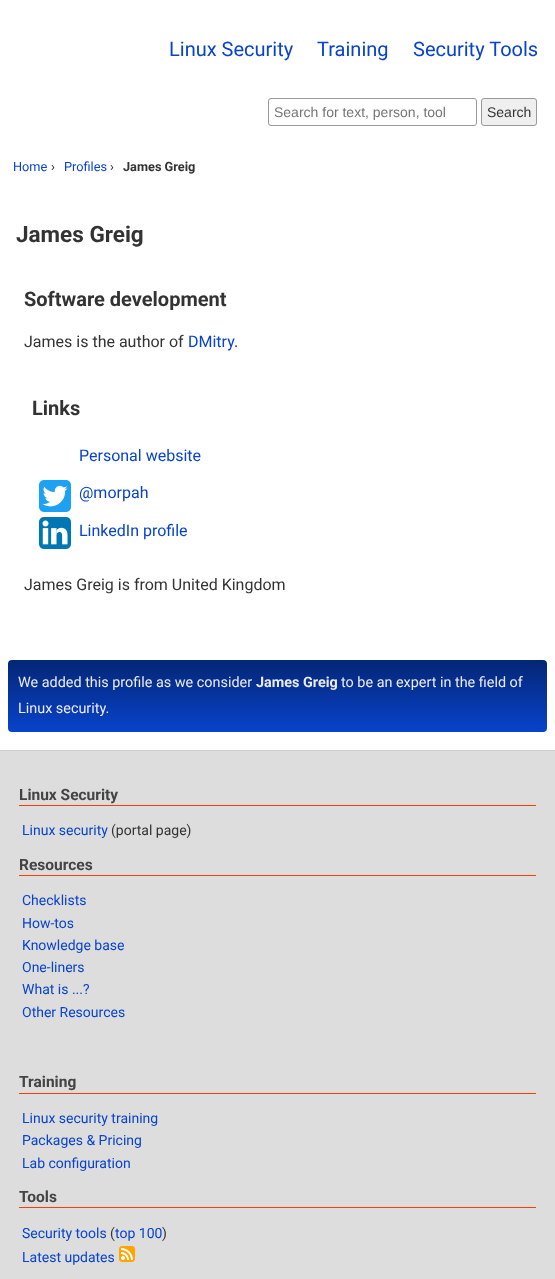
(async () => {
  const canvas = document.querySelector("canvas");
  canvas.width = 555;
  canvas.height = 1279;
  const ctx = canvas.getContext("2d");
  ctx.miterLimit = 4;
  ctx.fontKerning = "normal";
  async function loadImage(src) {
    const img = new Image();
    img.src = src;
    await img.decode();
    return img;
  }
  let gradient;

  ctx.fillStyle = "#ffffff";
  ctx.fillRect(0, 0, 555, 1279);
  ctx.beginPath();
  ctx.roundRect(268.5, 98.5, 208, 27, 2.5);
  ctx.strokeStyle = "#999999";
  ctx.stroke();
  ctx.fillStyle = "#efefef";
  ctx.beginPath();
  ctx.roundRect(481.5, 98.5, 55, 27, 2.5);
  ctx.fill();
  ctx.stroke();
  ctx.drawImage(await loadImage("img/1.png"), 39, 480, 32, 32);
  ctx.drawImage(await loadImage("img/2.png"), 39, 517, 32, 32);
  gradient = ctx.createLinearGradient(278, 660, 278, 732);
  gradient.addColorStop(0, "#042675");
  gradient.addColorStop(1, "#0843cc");
  ctx.fillStyle = gradient;
  ctx.beginPath();
  ctx.roundRect(8, 660, 539, 72, 4);
  ctx.fill();
  for (const [x, y, w, h, color] of [
    [0, 751, 555, 528, "#dddddd"],
    [0, 750, 555, 1, "#cccccc"],
    [19, 805, 517, 1, "#ff3d00"],
    [19, 875, 517, 1, "#ff3d00"],
    [19, 1093, 517, 1, "#ff3d00"],
    [19, 1207, 517, 1, "#ff3d00"],
  ]) {
    ctx.fillStyle = color;
    ctx.fillRect(x, y, w, h);
  }
  ctx.drawImage(await loadImage("img/3.png"), 119, 1246, 16, 16);
  ctx.font = "20px Roboto";
  ctx.fillStyle = "#0843cc";
  for (const [text, x, y] of [
    ["Linux Security", 169, 56],
    ["Training", 317, 56],
    ["Security Tools", 413, 56],
  ]) {
    ctx.fillText(text, x, y);
  }
  ctx.font = "14px Liberation Sans";
  ctx.fillStyle = "#757575";
  ctx.fillText("Search for text, person, tool", 274, 117);
  ctx.fillStyle = "#333333";
  ctx.fillText("Search", 487, 117);
  ctx.font = "12.75px Roboto";
  ctx.fillStyle = "#0843cc";
  ctx.fillText("Home", 13, 171);
  ctx.fillStyle = "#333333";
  ctx.fillText("›", 51, 171);
  ctx.fillStyle = "#0843cc";
  ctx.fillText("Profiles", 64, 171);
  ctx.fillStyle = "#333333";
  ctx.fillText("›", 110, 171);
  ctx.font = "bold 12.75px Roboto";
  ctx.fillText("James Greig", 123, 171);
  ctx.font = "bold 22.5px Roboto";
  ctx.fillText("James Greig", 16, 242);
  ctx.font = "bold 20px Roboto";
  ctx.fillText("Software development", 24, 306);
  ctx.font = "16px Roboto";
  ctx.fillText("James is the author of", 24, 347);
  ctx.fillStyle = "#0843cc";
  ctx.fillText("DMitry", 188, 347);
  ctx.fillStyle = "#333333";
  ctx.fillText(".", 234, 347);
  ctx.font = "bold 20px Roboto";
  ctx.fillText("Links", 32, 415);
  ctx.font = "16px Roboto";
  ctx.fillStyle = "#0843cc";
  for (const [text, x, y] of [
    ["Personal website", 79, 461],
    ["@morpah", 79, 498],
    ["LinkedIn profile", 79, 536],
  ]) {
    ctx.fillText(text, x, y);
  }
  ctx.fillStyle = "#333333";
  ctx.fillText("James Greig is from United Kingdom", 24, 590);
  ctx.font = "14.4px Roboto";
  ctx.fillStyle = "#ececec";
  ctx.fillText("We added this profile as we consider", 18, 687);
  ctx.font = "bold 14.4px Roboto";
  ctx.fillText("James Greig", 256, 687);
  ctx.font = "14.4px Roboto";
  ctx.fillText("to be an expert in the field of", 341, 687);
  ctx.fillText("Linux security.", 18, 713);
  ctx.font = "bold 15.5px Roboto";
  ctx.fillStyle = "#444444";
  ctx.fillText("Linux Security", 19, 800);
  ctx.font = "14px Roboto";
  ctx.fillStyle = "#0843cc";
  ctx.fillText("Linux security", 22, 835);
  ctx.fillStyle = "#333333";
  ctx.fillText("(portal page)", 111, 835);
  ctx.font = "bold 15.5px Roboto";
  ctx.fillStyle = "#444444";
  ctx.fillText("Resources", 19, 870);
  ctx.font = "14px Roboto";
  ctx.fillStyle = "#0843cc";
  for (const [text, x, y] of [
    ["Checklists", 22, 905],
    ["How-tos", 22, 928],
    ["Knowledge base", 22, 950],
    ["One-liners", 22, 972],
    ["What is ...?", 22, 994],
    ["Other Resources", 22, 1017],
  ]) {
    ctx.fillText(text, x, y);
  }
  ctx.font = "bold 15.5px Roboto";
  ctx.fillStyle = "#444444";
  ctx.fillText("Training", 19, 1087);
  ctx.font = "14px Roboto";
  ctx.fillStyle = "#0843cc";
  for (const [text, x, y] of [
    ["Linux security training", 22, 1123],
    ["Packages & Pricing", 22, 1145],
    ["Lab configuration", 22, 1168],
  ]) {
    ctx.fillText(text, x, y);
  }
  ctx.font = "bold 15.5px Roboto";
  ctx.fillStyle = "#444444";
  ctx.fillText("Tools", 19, 1202);
  ctx.font = "14px Roboto";
  ctx.fillStyle = "#0843cc";
  ctx.fillText("Security tools", 22, 1238);
  ctx.fillStyle = "#333333";
  ctx.fillText("(", 110, 1238);
  ctx.fillStyle = "#0843cc";
  ctx.fillText("top 100", 115, 1238);
  ctx.fillStyle = "#333333";
  ctx.fillText(")", 162, 1238);
  ctx.fillStyle = "#0843cc";
  ctx.fillText("Latest updates", 22, 1262);
})();
